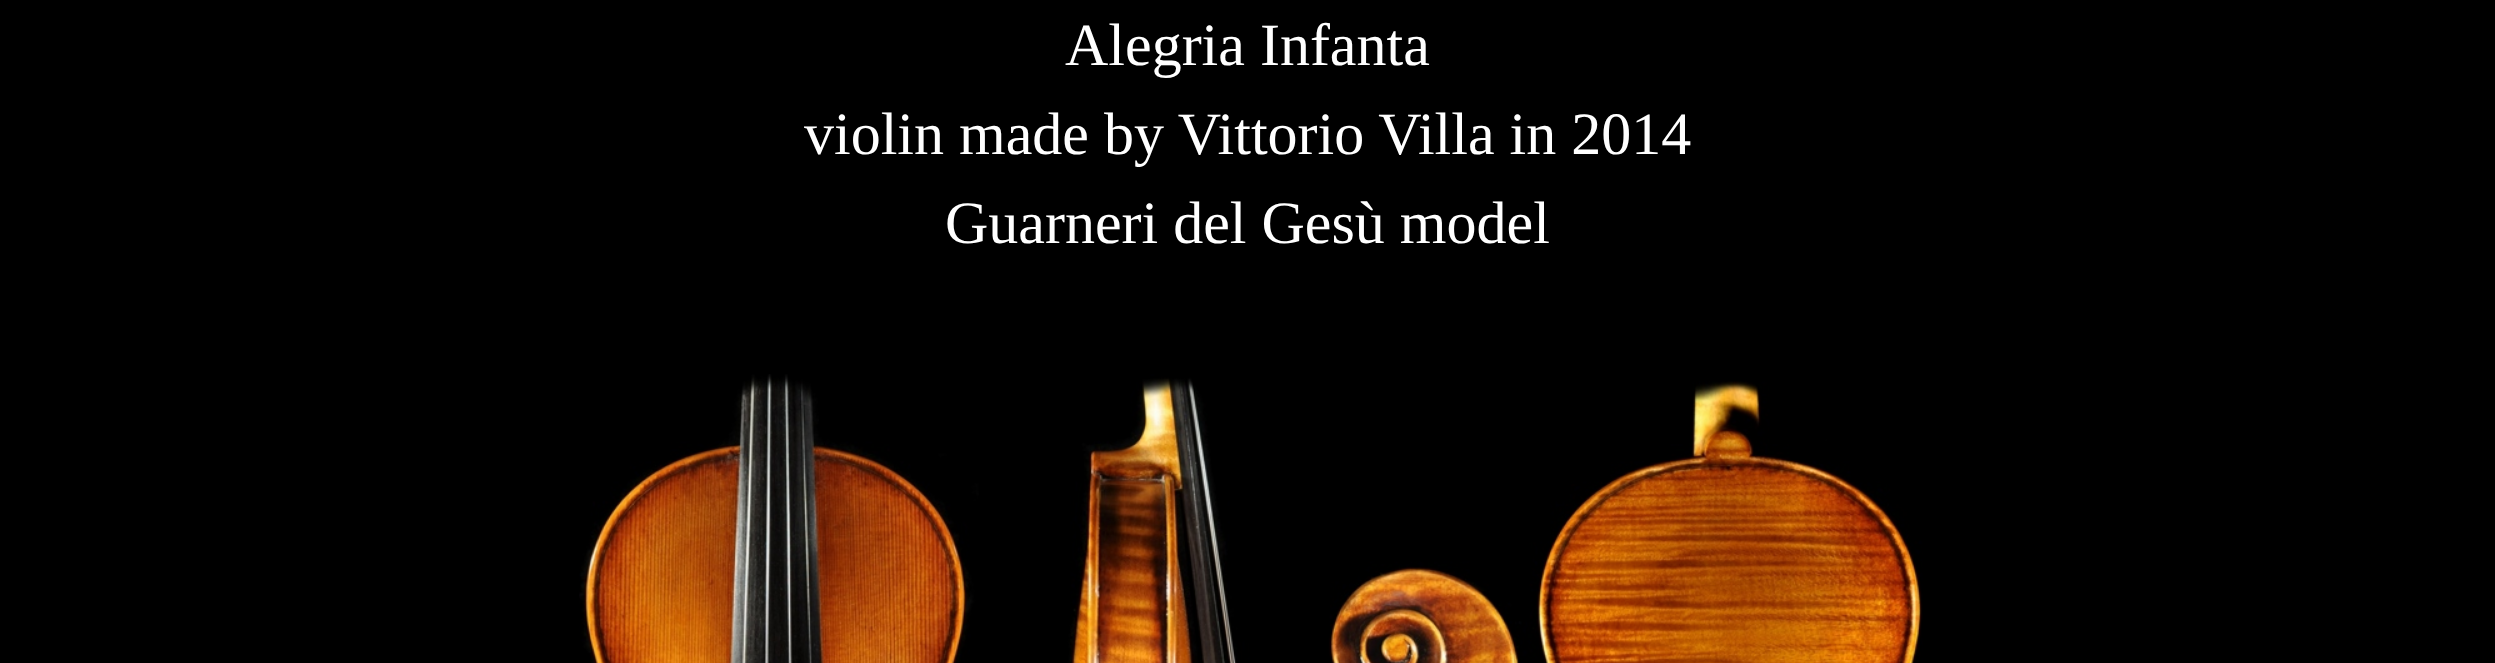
(async () => {
  const canvas = document.querySelector("canvas");
  canvas.width = 2495;
  canvas.height = 663;
  const ctx = canvas.getContext("2d");
  ctx.miterLimit = 4;
  ctx.fontKerning = "normal";
  async function loadImage(src) {
    const img = new Image();
    img.src = src;
    await img.decode();
    return img;
  }

  ctx.fillStyle = "#000000";
  ctx.fillRect(0, 0, 2495, 663);
  ctx.drawImage(await loadImage("img/1.png"), 579, 374, 1344, 289);
  ctx.font = "60px Liberation Serif";
  ctx.fillStyle = "#ffffff";
  for (const [text, x, y] of [
    ["Alegria Infanta", 1065, 65],
    ["violin made by Vittorio Villa in 2014", 804, 154],
    ["Guarneri del Gesù model", 945, 243],
  ]) {
    ctx.fillText(text, x, y);
  }
})();
